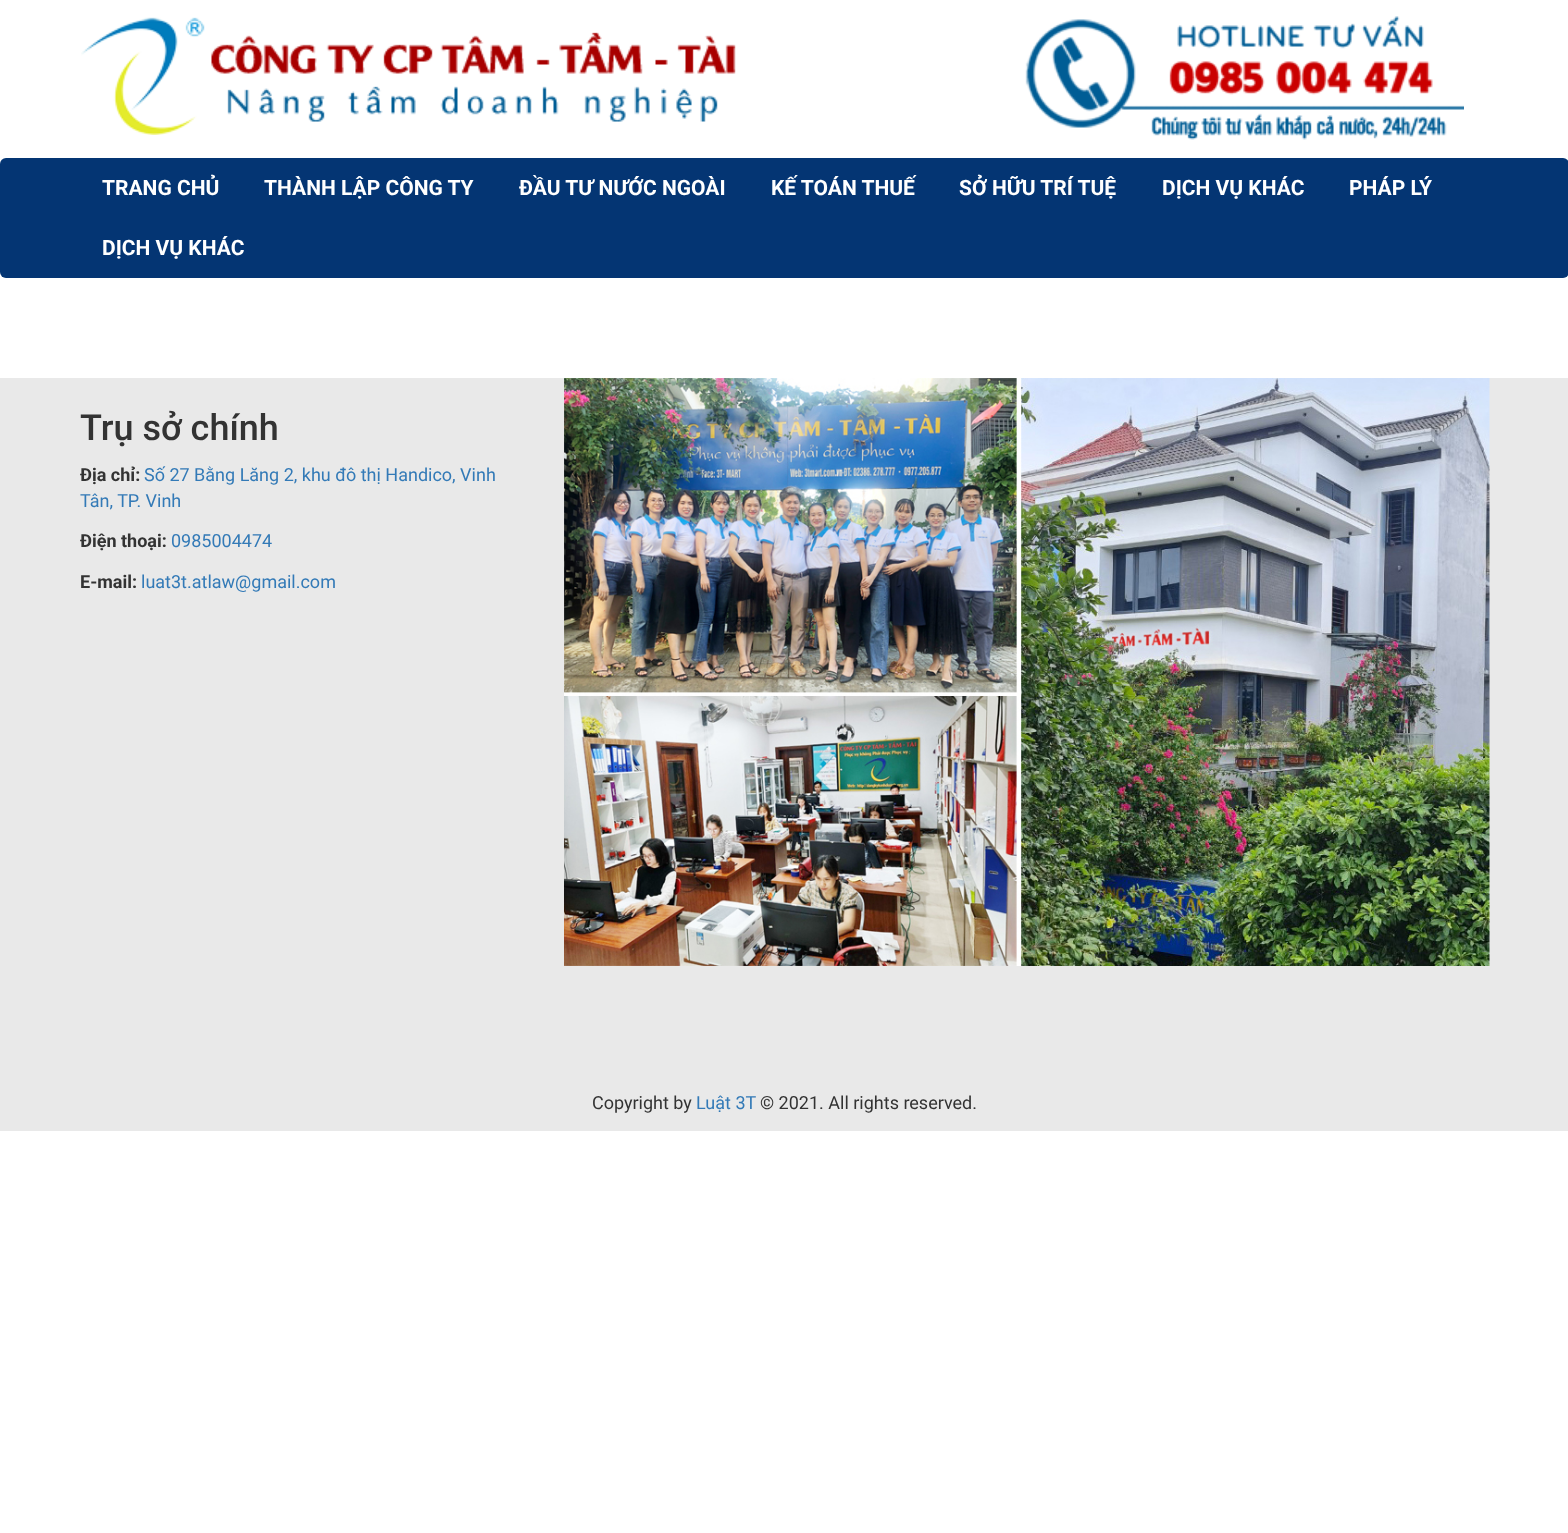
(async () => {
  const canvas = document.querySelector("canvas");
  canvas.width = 1568;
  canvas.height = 1533;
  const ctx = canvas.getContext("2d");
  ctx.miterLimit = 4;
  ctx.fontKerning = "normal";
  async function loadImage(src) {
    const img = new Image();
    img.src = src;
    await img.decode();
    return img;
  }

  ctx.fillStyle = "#ffffff";
  ctx.fillRect(0, 0, 1568, 1533);
  ctx.drawImage(await loadImage("img/1.png"), 81, 17, 655, 118);
  ctx.drawImage(await loadImage("img/2.png"), 1025, 16, 439, 124);
  ctx.fillStyle = "#043573";
  ctx.beginPath();
  ctx.roundRect(0, 158, 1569, 120, 6);
  ctx.fill();
  ctx.fillStyle = "#e9e9e9";
  ctx.fillRect(0, 378, 1568, 753);
  ctx.drawImage(await loadImage("img/3.png"), 564, 378, 926, 588);
  ctx.font = "bold 21px Roboto";
  ctx.fillStyle = "#ffffff";
  for (const [text, x, y] of [
    ["TRANG CHỦ", 102, 195],
    ["THÀNH LẬP CÔNG TY", 264, 195],
    ["ĐẦU TƯ NƯỚC NGOÀI", 519, 195],
    ["KẾ TOÁN THUẾ", 771, 195],
    ["SỞ HỮU TRÍ TUỆ", 959, 195],
    ["DỊCH VỤ KHÁC", 1162, 195],
    ["PHÁP LÝ", 1349, 195],
    ["DỊCH VỤ KHÁC", 102, 255],
  ]) {
    ctx.fillText(text, x, y);
  }
  ctx.font = "500 36px Roboto";
  ctx.fillStyle = "#333333";
  ctx.fillText("Trụ sở chính", 80, 440);
  ctx.font = "bold 18px Roboto";
  ctx.fillText("Địa chỉ:", 80, 481);
  ctx.font = "18px Roboto";
  ctx.fillStyle = "#337ab7";
  ctx.fillText("Số 27 Bằng Lăng 2, khu đô thị Handico, Vinh", 144, 481);
  ctx.fillText("Tân, TP. Vinh", 80, 507);
  ctx.font = "bold 18px Roboto";
  ctx.fillStyle = "#333333";
  ctx.fillText("Điện thoại:", 80, 547);
  ctx.font = "18px Roboto";
  ctx.fillStyle = "#337ab7";
  ctx.fillText("0985004474", 171, 547);
  ctx.font = "bold 18px Roboto";
  ctx.fillStyle = "#333333";
  ctx.fillText("E-mail:", 80, 588);
  ctx.font = "18px Roboto";
  ctx.fillStyle = "#337ab7";
  ctx.fillText("luat3t.atlaw@gmail.com", 141, 588);
  ctx.fillStyle = "#333333";
  ctx.fillText("Copyright by", 592, 1109);
  ctx.fillStyle = "#337ab7";
  ctx.fillText("Luật 3T", 696, 1109);
  ctx.fillStyle = "#333333";
  ctx.fillText("© 2021. All rights reserved.", 760, 1109);
})();
